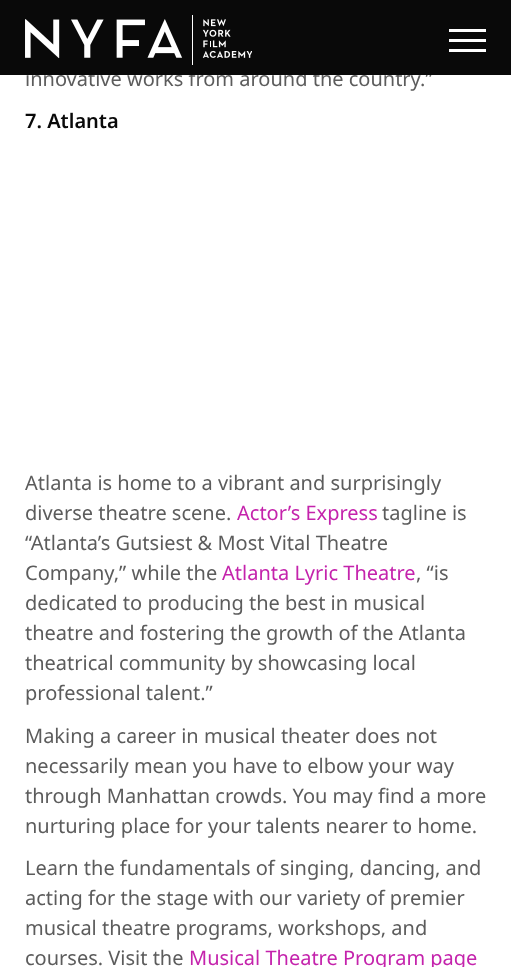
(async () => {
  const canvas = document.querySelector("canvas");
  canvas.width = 511;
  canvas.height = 967;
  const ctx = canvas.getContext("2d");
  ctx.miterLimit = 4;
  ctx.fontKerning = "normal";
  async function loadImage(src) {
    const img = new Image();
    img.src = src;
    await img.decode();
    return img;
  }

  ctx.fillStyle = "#ffffff";
  ctx.fillRect(0, 0, 511, 967);
  ctx.font = "20px Noto Sans";
  ctx.fillStyle = "#5c5c5c";
  ctx.fillText("innovative works from around the country.”", 25, 86);
  for (const [x, y, w, h, color] of [
    [0, 0, 511, 75, "#090909"],
    [449, 49, 37, 3, "#ffffff"],
    [449, 29, 37, 3, "#ffffff"],
    [449, 39, 37, 3, "#ffffff"],
  ]) {
    ctx.fillStyle = color;
    ctx.fillRect(x, y, w, h);
  }
  ctx.drawImage(await loadImage("img/1.png"), 25, 15, 227, 50);
  ctx.font = "600 20px Noto Sans";
  ctx.fillStyle = "#090909";
  ctx.fillText("7. Atlanta", 25, 128);
  ctx.font = "20px Noto Sans";
  ctx.fillStyle = "#5c5c5c";
  ctx.fillText("Atlanta is home to a vibrant and surprisingly", 25, 490);
  ctx.fillText("diverse theatre scene.", 25, 520);
  ctx.fillStyle = "#c423ac";
  ctx.fillText("Actor’s Express", 237, 520);
  ctx.fillStyle = "#5c5c5c";
  for (const [text, x, y] of [
    ["tagline is", 382, 520],
    ["“Atlanta’s Gutsiest & Most Vital Theatre", 25, 550],
    ["Company,” while the", 25, 580],
  ]) {
    ctx.fillText(text, x, y);
  }
  ctx.fillStyle = "#c423ac";
  ctx.fillText("Atlanta Lyric Theatre", 222, 580);
  ctx.fillStyle = "#5c5c5c";
  for (const [text, x, y] of [
    [", “is", 416, 580],
    ["dedicated to producing the best in musical", 25, 610],
    ["theatre and fostering the growth of the Atlanta", 25, 640],
    ["theatrical community by showcasing local", 25, 670],
    ["professional talent.”", 25, 700],
    ["Making a career in musical theater does not", 25, 743],
    ["necessarily mean you have to elbow your way", 25, 773],
    ["through Manhattan crowds. You may find a more", 25, 803],
    ["nurturing place for your talents nearer to home.", 25, 833],
    ["Learn the fundamentals of singing, dancing, and", 25, 875],
    ["acting for the stage with our variety of premier", 25, 905],
    ["musical theatre programs, workshops, and", 25, 935],
    ["courses. Visit the", 25, 965],
  ]) {
    ctx.fillText(text, x, y);
  }
  ctx.fillStyle = "#c423ac";
  ctx.fillText("Musical Theatre Program page", 189, 965);
})();
